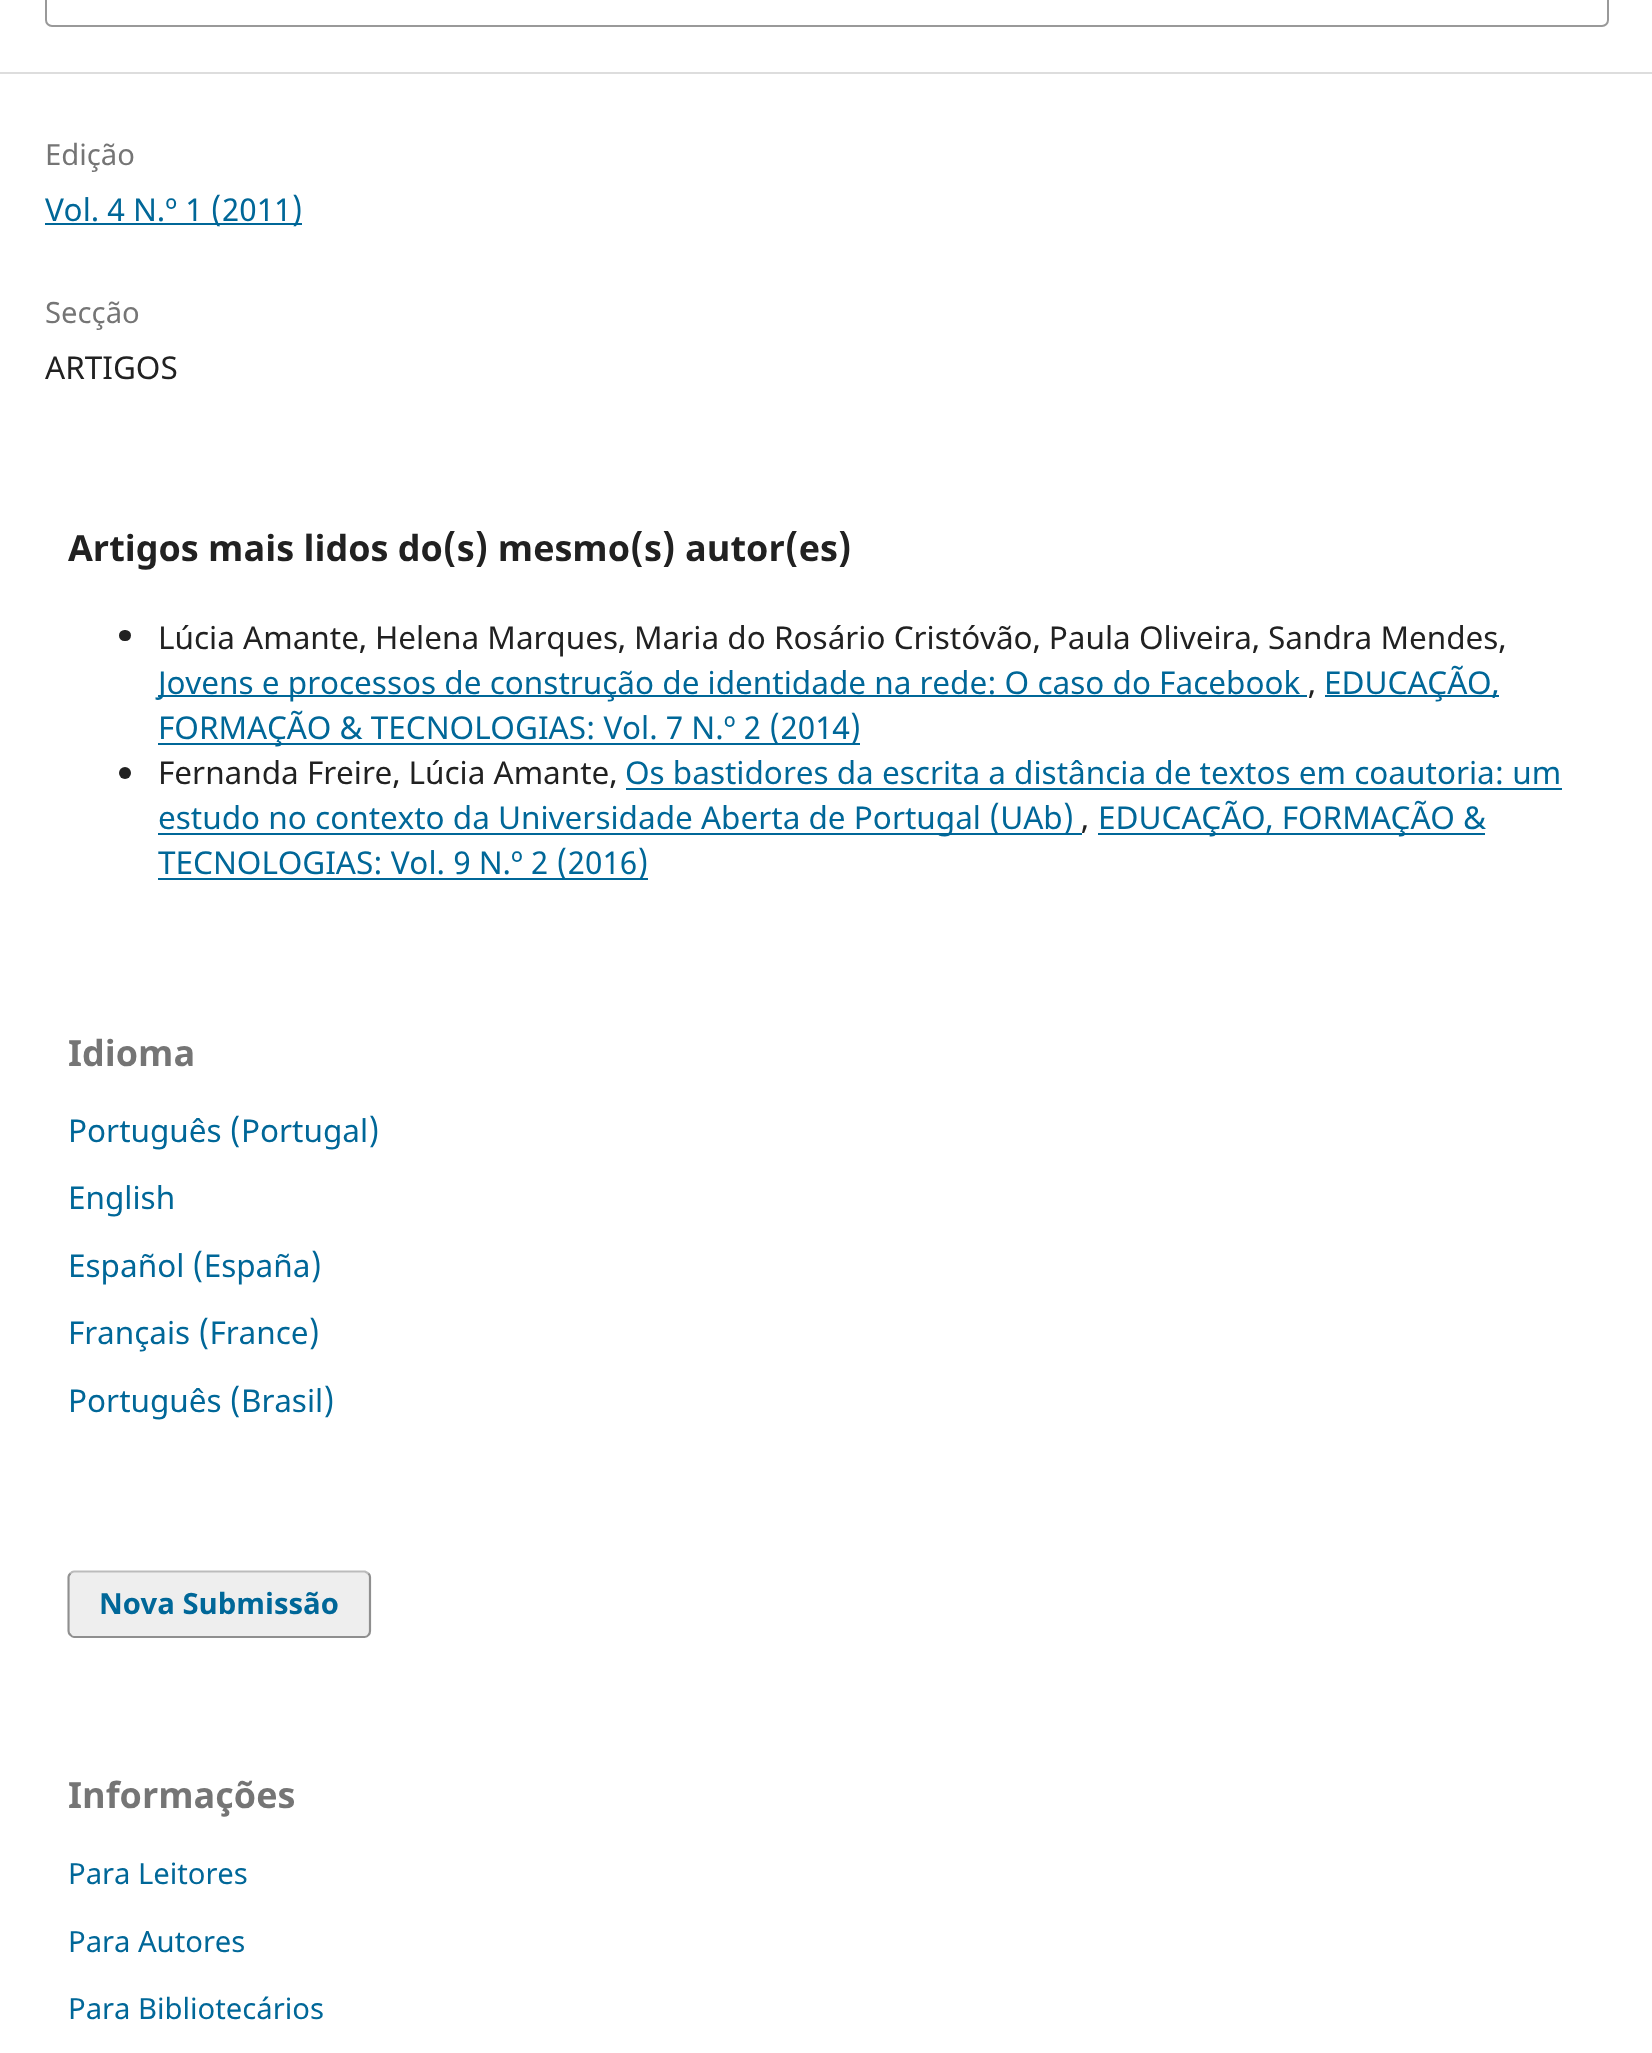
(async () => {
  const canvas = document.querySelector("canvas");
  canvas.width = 1652;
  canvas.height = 2053;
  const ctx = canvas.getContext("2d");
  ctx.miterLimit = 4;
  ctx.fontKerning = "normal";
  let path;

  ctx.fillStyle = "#ffffff";
  ctx.fillRect(0, 0, 1652, 2053);
  ctx.fillStyle = "#dddddd";
  ctx.fillRect(0, 72, 1652, 2);
  ctx.beginPath();
  ctx.roundRect(46, -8, 1562, 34, 6);
  ctx.strokeStyle = "#999999";
  ctx.lineWidth = 2;
  ctx.stroke();
  ctx.fillStyle = "#006798";
  ctx.fillRect(45, 223, 257, 2);
  ctx.fillStyle = "#212121";
  ctx.beginPath();
  ctx.roundRect(119, 630, 12, 11, 5.5);
  ctx.fill();
  for (const [x, y, w, h, color] of [
    [158, 695, 1149, 2, "#006798"],
    [1325, 695, 174, 2, "#006798"],
    [158, 743, 702, 2, "#006798"],
  ]) {
    ctx.fillStyle = color;
    ctx.fillRect(x, y, w, h);
  }
  ctx.fillStyle = "#212121";
  ctx.beginPath();
  ctx.arc(125, 773, 6, 0, Math.PI * 2);
  ctx.fill();
  for (const [x, y, w, h, color] of [
    [626, 788, 936, 2, "#006798"],
    [158, 833, 924, 2, "#006798"],
    [1098, 833, 387, 2, "#006798"],
    [158, 878, 490, 2, "#006798"],
  ]) {
    ctx.fillStyle = color;
    ctx.fillRect(x, y, w, h);
  }
  ctx.fillStyle = "#eeeeee";
  ctx.beginPath();
  ctx.roundRect(68, 1571, 303, 67, 7);
  ctx.fill();
  path = new Path2D("M70.5 1573.5C71.5 1572 73 1571.5 74 1571.5H365L368.5 1573.5");
  ctx.strokeStyle = "#bbbbbb";
  ctx.lineWidth = 2.2;
  ctx.stroke(path);
  path = new Path2D("M368.5 1573.5C369.5 1574.5 370 1576 370 1577V1631C370 1632.5 369.5 1634 368.5 1635C367.5 1636.5 366 1637 364.5 1637H74C73 1637 71.5 1636.5 70.5 1635C69 1634 68.5 1632.5 68.5 1631V1577C68.5 1576 69 1574.5 70.5 1573.5");
  ctx.strokeStyle = "rgba(0, 0, 0, 0.4)";
  ctx.stroke(path);
  ctx.font = "29.25px Noto Sans";
  ctx.fillStyle = "#757575";
  ctx.fillText("Edição", 45, 165);
  ctx.font = "31.5px Noto Sans";
  ctx.fillStyle = "#006798";
  ctx.fillText("Vol. 4 N.º 1 (2011)", 45, 221);
  ctx.font = "29.25px Noto Sans";
  ctx.fillStyle = "#757575";
  ctx.fillText("Secção", 45, 323);
  ctx.font = "31.5px Noto Sans";
  ctx.fillStyle = "#212121";
  ctx.fillText("ARTIGOS", 45, 379);
  ctx.font = "bold 36px Noto Sans";
  ctx.fillText("Artigos mais lidos do(s) mesmo(s) autor(es)", 68, 561);
  ctx.font = "31.5px Noto Sans";
  ctx.fillText("Lúcia Amante, Helena Marques, Maria do Rosário Cristóvão, Paula Oliveira, Sandra Mendes,", 158, 649);
  ctx.fillStyle = "#006798";
  ctx.fillText("Jovens e processos de construção de identidade na rede: O caso do Facebook", 158, 694);
  ctx.fillStyle = "#212121";
  ctx.fillText(",", 1308, 694);
  ctx.fillStyle = "#006798";
  ctx.fillText("EDUCAÇÃO,", 1324, 694);
  ctx.fillText("FORMAÇÃO & TECNOLOGIAS: Vol. 7 N.º 2 (2014)", 158, 739);
  ctx.fillStyle = "#212121";
  ctx.fillText("Fernanda Freire, Lúcia Amante,", 158, 784);
  ctx.fillStyle = "#006798";
  ctx.fillText("Os bastidores da escrita a distância de textos em coautoria: um", 625, 784);
  ctx.fillText("estudo no contexto da Universidade Aberta de Portugal (UAb)", 158, 829);
  ctx.fillStyle = "#212121";
  ctx.fillText(",", 1081, 829);
  ctx.fillStyle = "#006798";
  ctx.fillText("EDUCAÇÃO, FORMAÇÃO &", 1098, 829);
  ctx.fillText("TECNOLOGIAS: Vol. 9 N.º 2 (2016)", 158, 874);
  ctx.font = "bold 36px Noto Sans";
  ctx.fillStyle = "#757575";
  ctx.fillText("Idioma", 68, 1066);
  ctx.font = "31.5px Noto Sans";
  ctx.fillStyle = "#006798";
  for (const [text, x, y] of [
    ["Português (Portugal)", 68, 1142],
    ["English", 68, 1209],
    ["Español (España)", 68, 1277],
    ["Français (France)", 68, 1344],
    ["Português (Brasil)", 68, 1412],
  ]) {
    ctx.fillText(text, x, y);
  }
  ctx.font = "bold 29.25px Noto Sans";
  ctx.fillText("Nova Submissão", 99, 1614);
  ctx.font = "bold 36px Noto Sans";
  ctx.fillStyle = "#757575";
  ctx.fillText("Informações", 68, 1808);
  ctx.font = "29.25px Noto Sans";
  ctx.fillStyle = "#006798";
  for (const [text, x, y] of [
    ["Para Leitores", 68, 1884],
    ["Para Autores", 68, 1952],
    ["Para Bibliotecários", 68, 2019],
  ]) {
    ctx.fillText(text, x, y);
  }
})();
